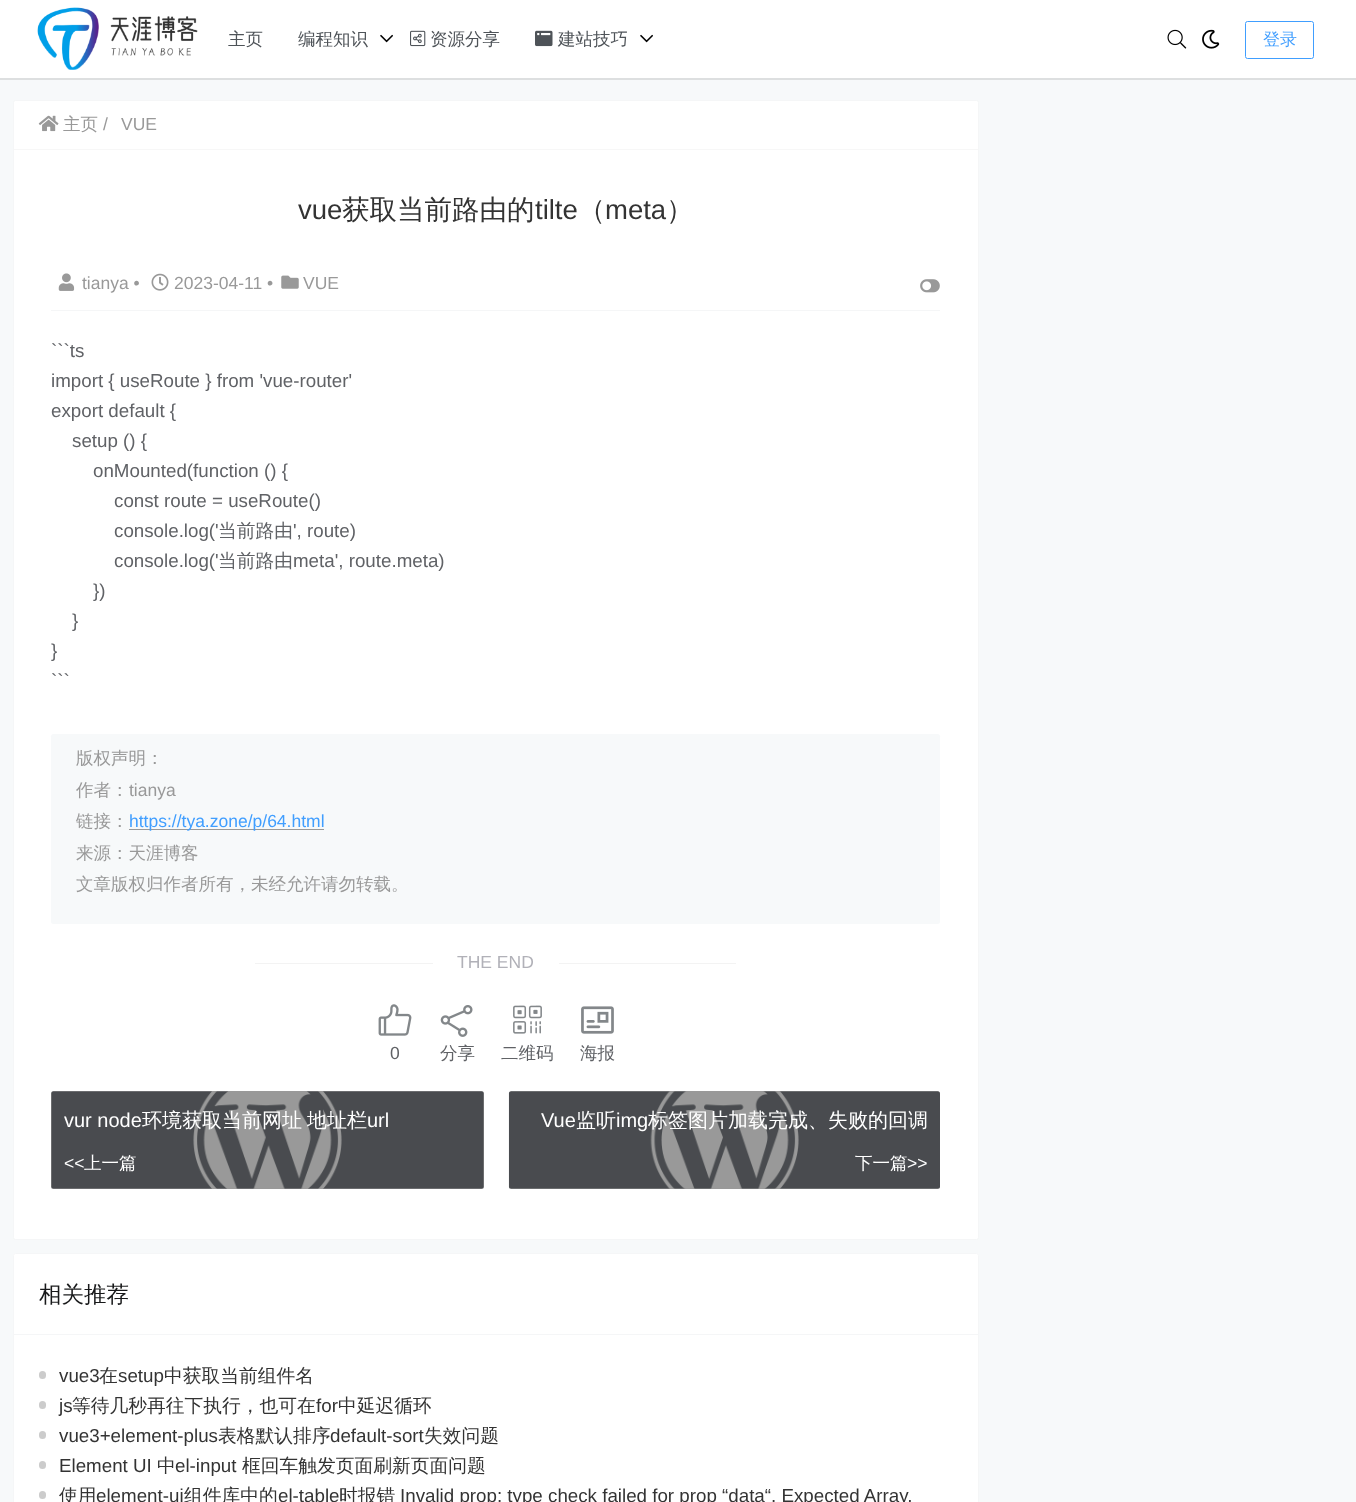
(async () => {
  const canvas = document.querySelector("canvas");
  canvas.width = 1356;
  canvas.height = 1502;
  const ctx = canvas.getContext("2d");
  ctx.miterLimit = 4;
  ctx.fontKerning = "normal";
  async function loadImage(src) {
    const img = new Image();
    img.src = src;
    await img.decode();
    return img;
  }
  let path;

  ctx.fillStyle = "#f7f9fa";
  ctx.fillRect(0, 0, 1356, 1502);
  ctx.fillStyle = "rgba(0, 0, 0, 0.1)";
  ctx.filter = "blur(0.5px)";
  ctx.beginPath();
  ctx.rect(-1, 0, 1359, 80);
  ctx.fill();
  ctx.filter = "none";
  ctx.fillStyle = "#ffffff";
  ctx.fillRect(0, 0, 1356, 78);
  ctx.drawImage(await loadImage("img/1.png"), 37, 7, 161, 63);
  ctx.drawImage(await loadImage("img/2.png"), 380, 34, 13, 9);
  ctx.drawImage(await loadImage("img/3.png"), 410, 30, 16, 17);
  ctx.drawImage(await loadImage("img/4.png"), 535, 30, 18, 17);
  ctx.drawImage(await loadImage("img/2.png"), 640, 34, 13, 9);
  ctx.drawImage(await loadImage("img/5.png"), 1167, 29, 20, 20);
  ctx.drawImage(await loadImage("img/6.png"), 1202, 29, 18, 20);
  ctx.beginPath();
  ctx.roundRect(1245.5, 21.5, 68, 37, 2);
  ctx.strokeStyle = "#409eff";
  ctx.stroke();
  ctx.beginPath();
  ctx.roundRect(13.5, 100.5, 965, 1139, 2);
  ctx.fill();
  ctx.strokeStyle = "#f5f6f7";
  ctx.stroke();
  ctx.fillStyle = "#f7f7f7";
  ctx.fillRect(14, 149, 964, 1);
  ctx.drawImage(await loadImage("img/7.png"), 38, 115, 21, 17);
  ctx.fillStyle = "#f5f6f7";
  ctx.fillRect(51, 310, 889, 1);
  ctx.drawImage(await loadImage("img/8.png"), 58, 273, 17, 18);
  ctx.drawImage(await loadImage("img/9.png"), 151, 273, 18, 18);
  ctx.drawImage(await loadImage("img/10.png"), 281, 275, 18, 14);
  ctx.drawImage(await loadImage("img/11.png"), 920, 279, 20, 14);
  ctx.fillStyle = "#f7f9fa";
  ctx.beginPath();
  ctx.roundRect(51, 734, 889, 190, 2.5);
  ctx.fill();
  for (const [x, y, w, h, color] of [
    [129, 829, 195, 1, "#999999"],
    [255, 963, 178, 1, "#f3f3f3"],
    [559, 963, 177, 1, "#f3f3f3"],
  ]) {
    ctx.fillStyle = color;
    ctx.fillRect(x, y, w, h);
  }
  ctx.drawImage(await loadImage("img/12.png"), 378, 1004, 34, 32);
  ctx.drawImage(await loadImage("img/13.png"), 440, 1005, 33, 32);
  ctx.drawImage(await loadImage("img/14.png"), 513, 1005, 29, 29);
  ctx.drawImage(await loadImage("img/15.png"), 581, 1006, 33, 28);
  ctx.drawImage(await loadImage("img/16.png"), 51, 1091, 433, 98);
  ctx.fillStyle = "rgba(0, 0, 0, 0.4)";
  ctx.beginPath();
  ctx.roundRect(51, 1091, 433, 98, 2.5);
  ctx.fill();
  ctx.drawImage(await loadImage("img/17.png"), 508, 1091, 432, 98);
  ctx.beginPath();
  ctx.roundRect(509, 1091, 431, 98, 2.5);
  ctx.fill();
  ctx.fillStyle = "#ffffff";
  path = new Path2D("M15.5 1253H976.5C978 1253 979 1254 979 1255.5V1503H13V1255.5C13 1254 14 1253 15.5 1253Z");
  ctx.fill(path);
  ctx.beginPath();
  ctx.roundRect(13.5, 1253.5, 965, 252, 2);
  ctx.stroke();
  ctx.fillStyle = "#f5f6f7";
  ctx.fillRect(14, 1334, 964, 1);
  ctx.fillStyle = "#cccccc";
  ctx.beginPath();
  ctx.roundRect(39, 1371, 7, 8, 3.5);
  ctx.fill();
  ctx.beginPath();
  ctx.roundRect(39, 1401, 7, 8, 3.5);
  ctx.fill();
  ctx.beginPath();
  ctx.roundRect(39, 1431, 7, 8, 3.5);
  ctx.fill();
  ctx.beginPath();
  ctx.roundRect(39, 1461, 7, 8, 3.5);
  ctx.fill();
  ctx.beginPath();
  ctx.roundRect(39, 1491, 7, 8, 3.5);
  ctx.fill();
  ctx.font = "500 17.5px WenQuanYi Zen Hei";
  ctx.fillStyle = "#4e5358";
  for (const [text, x, y] of [
    ["主页", 228, 45],
    ["编程知识", 298, 45],
    ["资源分享", 430, 45],
    ["建站技巧", 558, 45],
  ]) {
    ctx.fillText(text, x, y);
  }
  ctx.font = "500 17px WenQuanYi Zen Hei";
  ctx.fillStyle = "#409eff";
  ctx.fillText("登录", 1263, 45);
  ctx.font = "500 17.5px WenQuanYi Zen Hei";
  ctx.fillStyle = "#999999";
  ctx.fillText("主页", 63, 130);
  ctx.font = "17.5px Liberation Sans";
  ctx.fillText("/", 103, 130);
  ctx.fillText("VUE", 121, 130);
  ctx.font = "27.5px Liberation Sans";
  ctx.fillStyle = "#333333";
  ctx.fillText("vue", 298, 219);
  ctx.font = "500 27.5px WenQuanYi Zen Hei";
  ctx.fillText("获取当前路由的", 342, 219);
  ctx.font = "27.5px Liberation Sans";
  ctx.fillText("tilte", 535, 219);
  ctx.font = "500 27.5px WenQuanYi Zen Hei";
  ctx.fillText("（", 578, 219);
  ctx.font = "27.5px Liberation Sans";
  ctx.fillText("meta", 605, 219);
  ctx.font = "500 27.5px WenQuanYi Zen Hei";
  ctx.fillText("）", 666, 219);
  ctx.font = "17.5px Liberation Sans";
  ctx.fillStyle = "#999999";
  for (const [text, x, y] of [
    ["tianya •", 82, 289],
    ["2023-04-11 •", 174, 289],
    ["VUE", 303, 289],
  ]) {
    ctx.fillText(text, x, y);
  }
  ctx.font = "18.75px Liberation Sans";
  ctx.fillStyle = "#606266";
  for (const [text, x, y] of [
    ["```ts", 51, 357],
    ["import { useRoute } from 'vue-router'", 51, 387],
    ["export default {", 51, 417],
    ["setup () {", 72, 447],
    ["onMounted(function () {", 93, 477],
    ["const route = useRoute()", 114, 507],
    ["console.log('", 114, 537],
  ]) {
    ctx.fillText(text, x, y);
  }
  ctx.font = "500 18.75px WenQuanYi Zen Hei";
  ctx.fillText("当前路由", 218, 537);
  ctx.font = "18.75px Liberation Sans";
  ctx.fillText("', route)", 293, 537);
  ctx.fillText("console.log('", 114, 567);
  ctx.font = "500 18.75px WenQuanYi Zen Hei";
  ctx.fillText("当前路由", 218, 567);
  ctx.font = "18.75px Liberation Sans";
  for (const [text, x, y] of [
    ["meta', route.meta)", 293, 567],
    ["})", 93, 597],
    ["}", 72, 627],
    ["}", 51, 657],
    ["```", 51, 687],
  ]) {
    ctx.fillText(text, x, y);
  }
  ctx.font = "500 17.5px WenQuanYi Zen Hei";
  ctx.fillStyle = "#999999";
  ctx.fillText("版权声明：", 76, 764);
  ctx.fillText("作者：", 76, 796);
  ctx.font = "17.5px Liberation Sans";
  ctx.fillText("tianya", 129, 796);
  ctx.font = "500 17.5px WenQuanYi Zen Hei";
  ctx.fillText("链接：", 76, 827);
  ctx.font = "17.5px Liberation Sans";
  ctx.fillStyle = "#409eff";
  ctx.fillText("https://tya.zone/p/64.html", 129, 827);
  ctx.font = "500 17.5px WenQuanYi Zen Hei";
  ctx.fillStyle = "#999999";
  ctx.fillText("来源：天涯博客", 76, 859);
  ctx.fillText("文章版权归作者所有，未经允许请勿转载。", 76, 890);
  ctx.font = "17.5px Liberation Sans";
  ctx.fillStyle = "#b1b1b8";
  ctx.fillText("THE END", 457, 968);
  ctx.fillStyle = "#606266";
  ctx.fillText("0", 390, 1059);
  ctx.font = "500 17.5px WenQuanYi Zen Hei";
  for (const [text, x, y] of [
    ["分享", 440, 1059],
    ["二维码", 501, 1059],
    ["海报", 580, 1059],
  ]) {
    ctx.fillText(text, x, y);
  }
  ctx.font = "20px Liberation Sans";
  ctx.fillStyle = "#ffffff";
  ctx.fillText("vur node", 64, 1127);
  ctx.font = "500 20px WenQuanYi Zen Hei";
  ctx.fillText("环境获取当前网址", 142, 1127);
  ctx.fillText("地址栏", 307, 1127);
  ctx.font = "20px Liberation Sans";
  ctx.fillText("url", 367, 1127);
  ctx.font = "17.5px Liberation Sans";
  ctx.fillText("<<", 64, 1169);
  ctx.font = "500 17.5px WenQuanYi Zen Hei";
  ctx.fillText("上一篇", 84, 1169);
  ctx.font = "20px Liberation Sans";
  ctx.fillText("Vue", 541, 1127);
  ctx.font = "500 20px WenQuanYi Zen Hei";
  ctx.fillText("监听", 576, 1127);
  ctx.font = "20px Liberation Sans";
  ctx.fillText("img", 616, 1127);
  ctx.font = "500 20px WenQuanYi Zen Hei";
  ctx.fillText("标签图片加载完成、失败的回调", 648, 1127);
  ctx.font = "500 17.5px WenQuanYi Zen Hei";
  ctx.fillText("下一篇", 855, 1169);
  ctx.font = "17.5px Liberation Sans";
  ctx.fillText(">>", 907, 1169);
  ctx.font = "500 22.5px WenQuanYi Zen Hei";
  ctx.fillStyle = "#18191a";
  ctx.fillText("相关推荐", 39, 1302);
  ctx.font = "18.75px Liberation Sans";
  ctx.fillStyle = "#333333";
  ctx.fillText("vue3", 59, 1382);
  ctx.font = "500 18.75px WenQuanYi Zen Hei";
  ctx.fillText("在", 99, 1382);
  ctx.font = "18.75px Liberation Sans";
  ctx.fillText("setup", 118, 1382);
  ctx.font = "500 18.75px WenQuanYi Zen Hei";
  ctx.fillText("中获取当前组件名", 164, 1382);
  ctx.font = "18.75px Liberation Sans";
  ctx.fillText("js", 59, 1412);
  ctx.font = "500 18.75px WenQuanYi Zen Hei";
  ctx.fillText("等待几秒再往下执行，也可在", 72, 1412);
  ctx.font = "18.75px Liberation Sans";
  ctx.fillText("for", 316, 1412);
  ctx.font = "500 18.75px WenQuanYi Zen Hei";
  ctx.fillText("中延迟循环", 338, 1412);
  ctx.font = "18.75px Liberation Sans";
  ctx.fillText("vue3+element-plus", 59, 1442);
  ctx.font = "500 18.75px WenQuanYi Zen Hei";
  ctx.fillText("表格默认排序", 218, 1442);
  ctx.font = "18.75px Liberation Sans";
  ctx.fillText("default-sort", 330, 1442);
  ctx.font = "500 18.75px WenQuanYi Zen Hei";
  ctx.fillText("失效问题", 424, 1442);
  ctx.font = "18.75px Liberation Sans";
  ctx.fillText("Element UI", 59, 1472);
  ctx.font = "500 18.75px WenQuanYi Zen Hei";
  ctx.fillText("中", 157, 1472);
  ctx.font = "18.75px Liberation Sans";
  ctx.fillText("el-input", 175, 1472);
  ctx.font = "500 18.75px WenQuanYi Zen Hei";
  ctx.fillText("框回车触发页面刷新页面问题", 242, 1472);
  ctx.fillText("使用", 59, 1502);
  ctx.font = "18.75px Liberation Sans";
  ctx.fillText("element-ui", 96, 1502);
  ctx.font = "500 18.75px WenQuanYi Zen Hei";
  ctx.fillText("组件库中的", 184, 1502);
  ctx.font = "18.75px Liberation Sans";
  ctx.fillText("el-table", 278, 1502);
  ctx.font = "500 18.75px WenQuanYi Zen Hei";
  ctx.fillText("时报错", 339, 1502);
  ctx.font = "18.75px Liberation Sans";
  ctx.fillText("Invalid prop: type check failed for prop “data“. Expected Array,", 400, 1502);
})();
